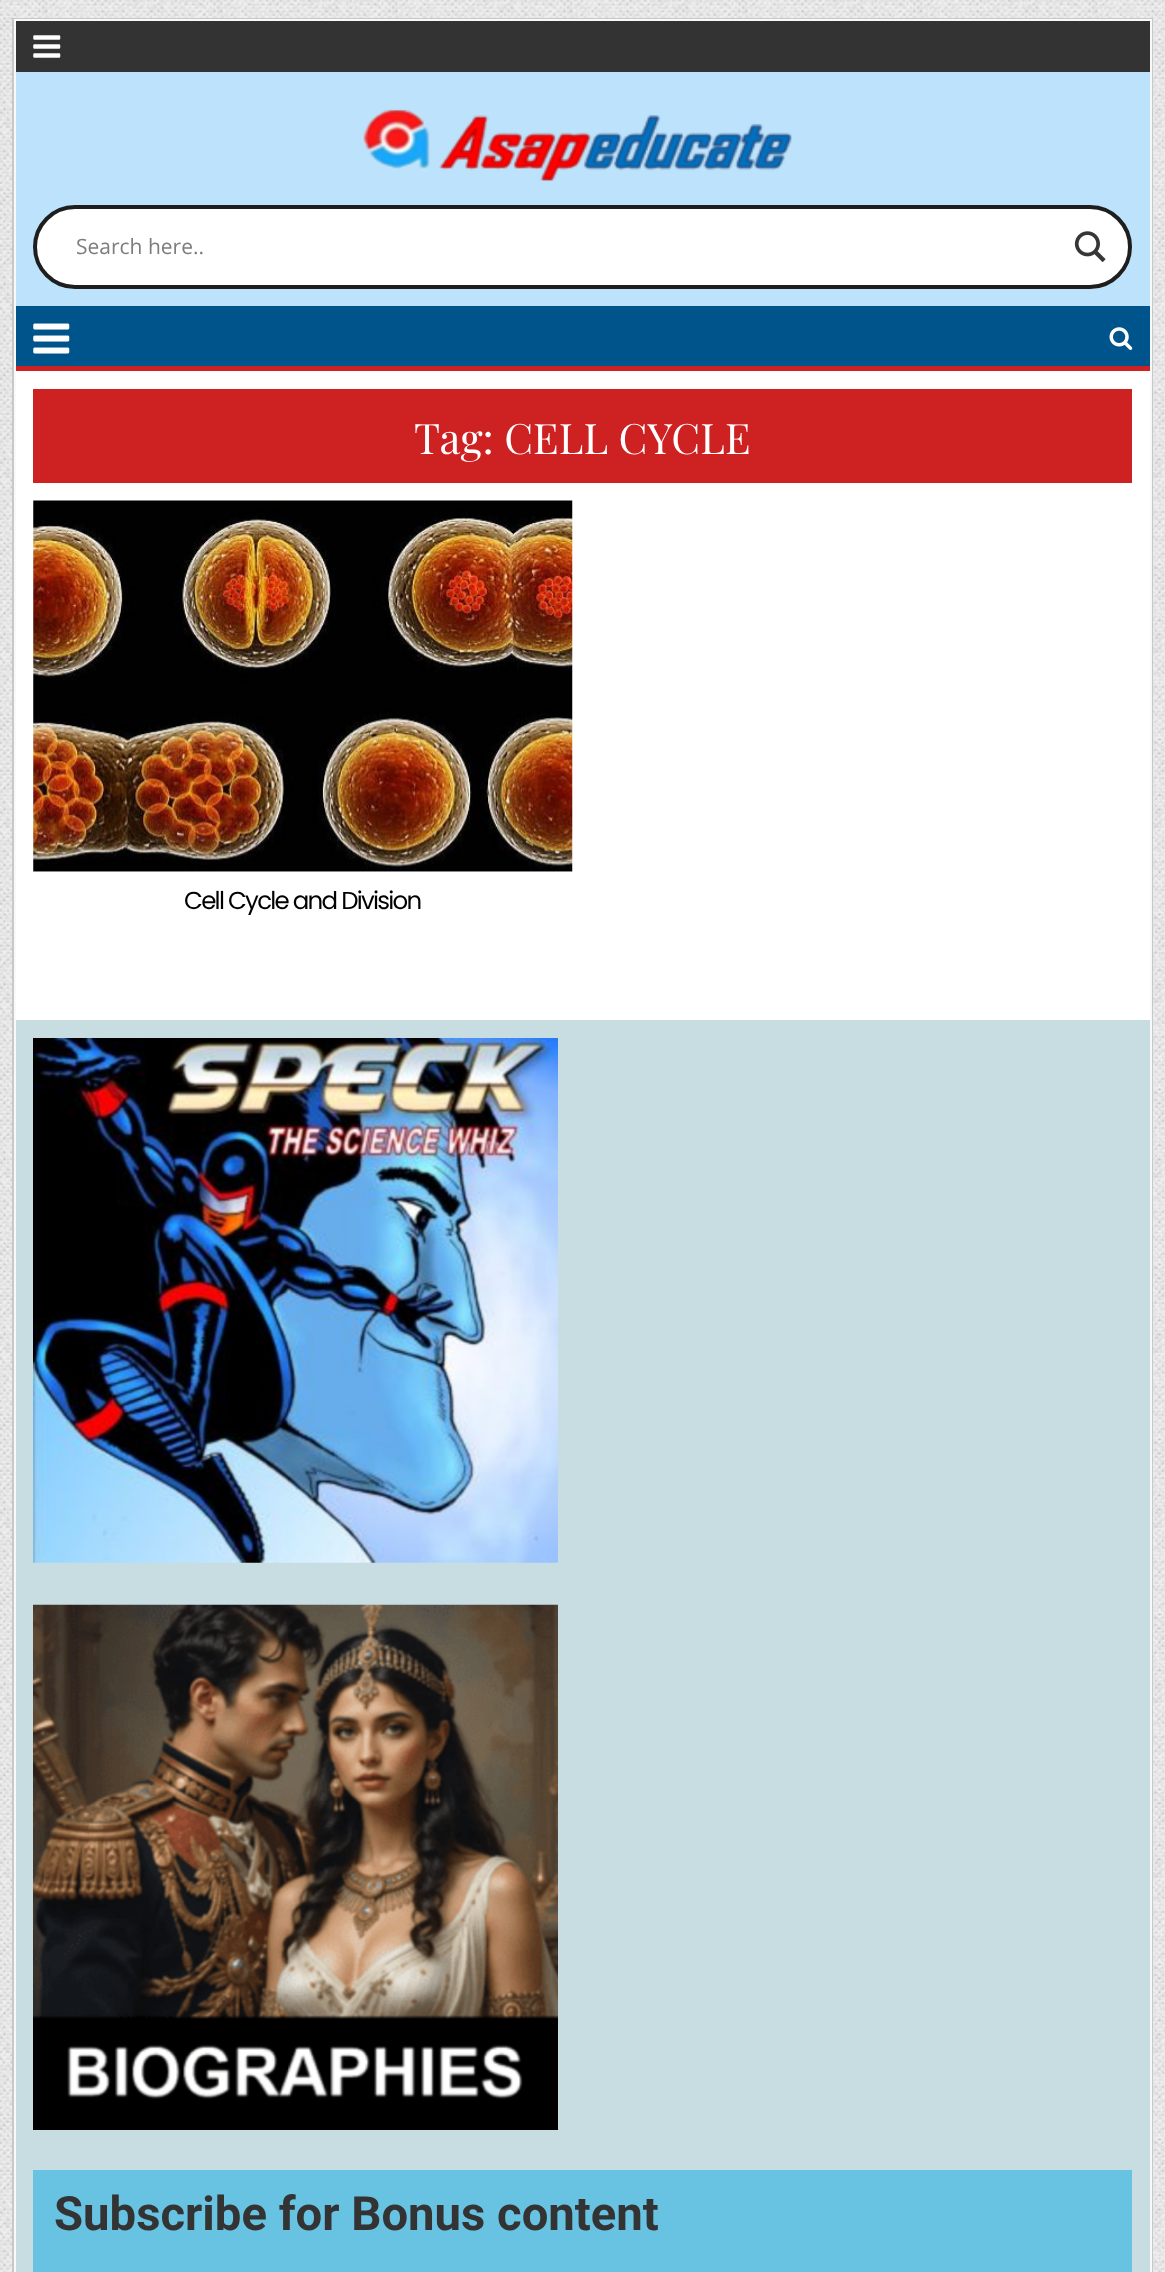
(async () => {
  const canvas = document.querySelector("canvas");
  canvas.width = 1165;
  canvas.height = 2272;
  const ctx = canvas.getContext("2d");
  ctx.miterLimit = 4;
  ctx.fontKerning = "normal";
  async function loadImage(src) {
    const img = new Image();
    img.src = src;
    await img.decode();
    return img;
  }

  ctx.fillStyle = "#ffffff";
  ctx.fillRect(0, 0, 1165, 2272);
  ctx.drawImage(await loadImage("img/1.png"), 0, 0, 1165, 2272);
  ctx.strokeStyle = "#c8c8c8";
  ctx.lineWidth = 2;
  ctx.strokeRect(13, 19, 1139, 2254);
  ctx.strokeStyle = "#f9f9f9";
  ctx.strokeRect(15, 20, 1136, 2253);
  ctx.fillStyle = "#333333";
  ctx.fillRect(16, 21, 1134, 51);
  ctx.drawImage(await loadImage("img/2.png"), 33, 35, 28, 23);
  ctx.fillStyle = "#bde3fc";
  ctx.fillRect(16, 72, 1134, 234);
  ctx.drawImage(await loadImage("img/3.png"), 363, 109, 429, 72);
  ctx.fillStyle = "#ffffff";
  ctx.beginPath();
  ctx.roundRect(35, 207, 1095, 80, 40);
  ctx.fill();
  ctx.strokeStyle = "#1e1e1e";
  ctx.lineWidth = 4;
  ctx.stroke();
  ctx.drawImage(await loadImage("img/4.png"), 1074, 231, 32, 32);
  ctx.fillStyle = "#00548c";
  ctx.fillRect(16, 306, 1134, 60);
  ctx.fillStyle = "#cd2122";
  ctx.fillRect(16, 366, 1134, 5);
  ctx.drawImage(await loadImage("img/5.png"), 33, 323, 37, 31);
  ctx.drawImage(await loadImage("img/6.png"), 1109, 327, 24, 23);
  ctx.fillStyle = "#ffffff";
  ctx.fillRect(16, 371, 1134, 649);
  ctx.fillStyle = "#cd2122";
  ctx.fillRect(33, 389, 1099, 94);
  ctx.drawImage(await loadImage("img/7.png"), 33, 500, 540, 372);
  ctx.fillStyle = "#c7dde2";
  ctx.fillRect(16, 1020, 1134, 1252);
  ctx.drawImage(await loadImage("img/8.png"), 33, 1038, 525, 525);
  ctx.drawImage(await loadImage("img/9.png"), 33, 1604, 525, 526);
  ctx.fillStyle = "#68c2e2";
  ctx.fillRect(33, 2170, 1099, 102);
  ctx.font = "21px Open Sans";
  ctx.fillStyle = "#7d7d7d";
  ctx.fillText("Search here..", 76, 254);
  ctx.font = "42px Playfair Display";
  ctx.fillStyle = "#ffffff";
  ctx.fillText("Tag: CELL CYCLE", 414, 454);
  ctx.save();
  ctx.beginPath();
  ctx.rect(33, 501, 539, 414);
  ctx.clip();
  ctx.letterSpacing = "-1.75px";
  ctx.font = "24.5px Poppins";
  ctx.fillStyle = "#000000";
  ctx.fillText("Cell Cycle and Division", 184, 909);
  ctx.restore();
  ctx.font = "bold 47.25px Roboto";
  ctx.fillStyle = "#333333";
  ctx.fillText("Subscribe for Bonus content", 54, 2230);
})();
